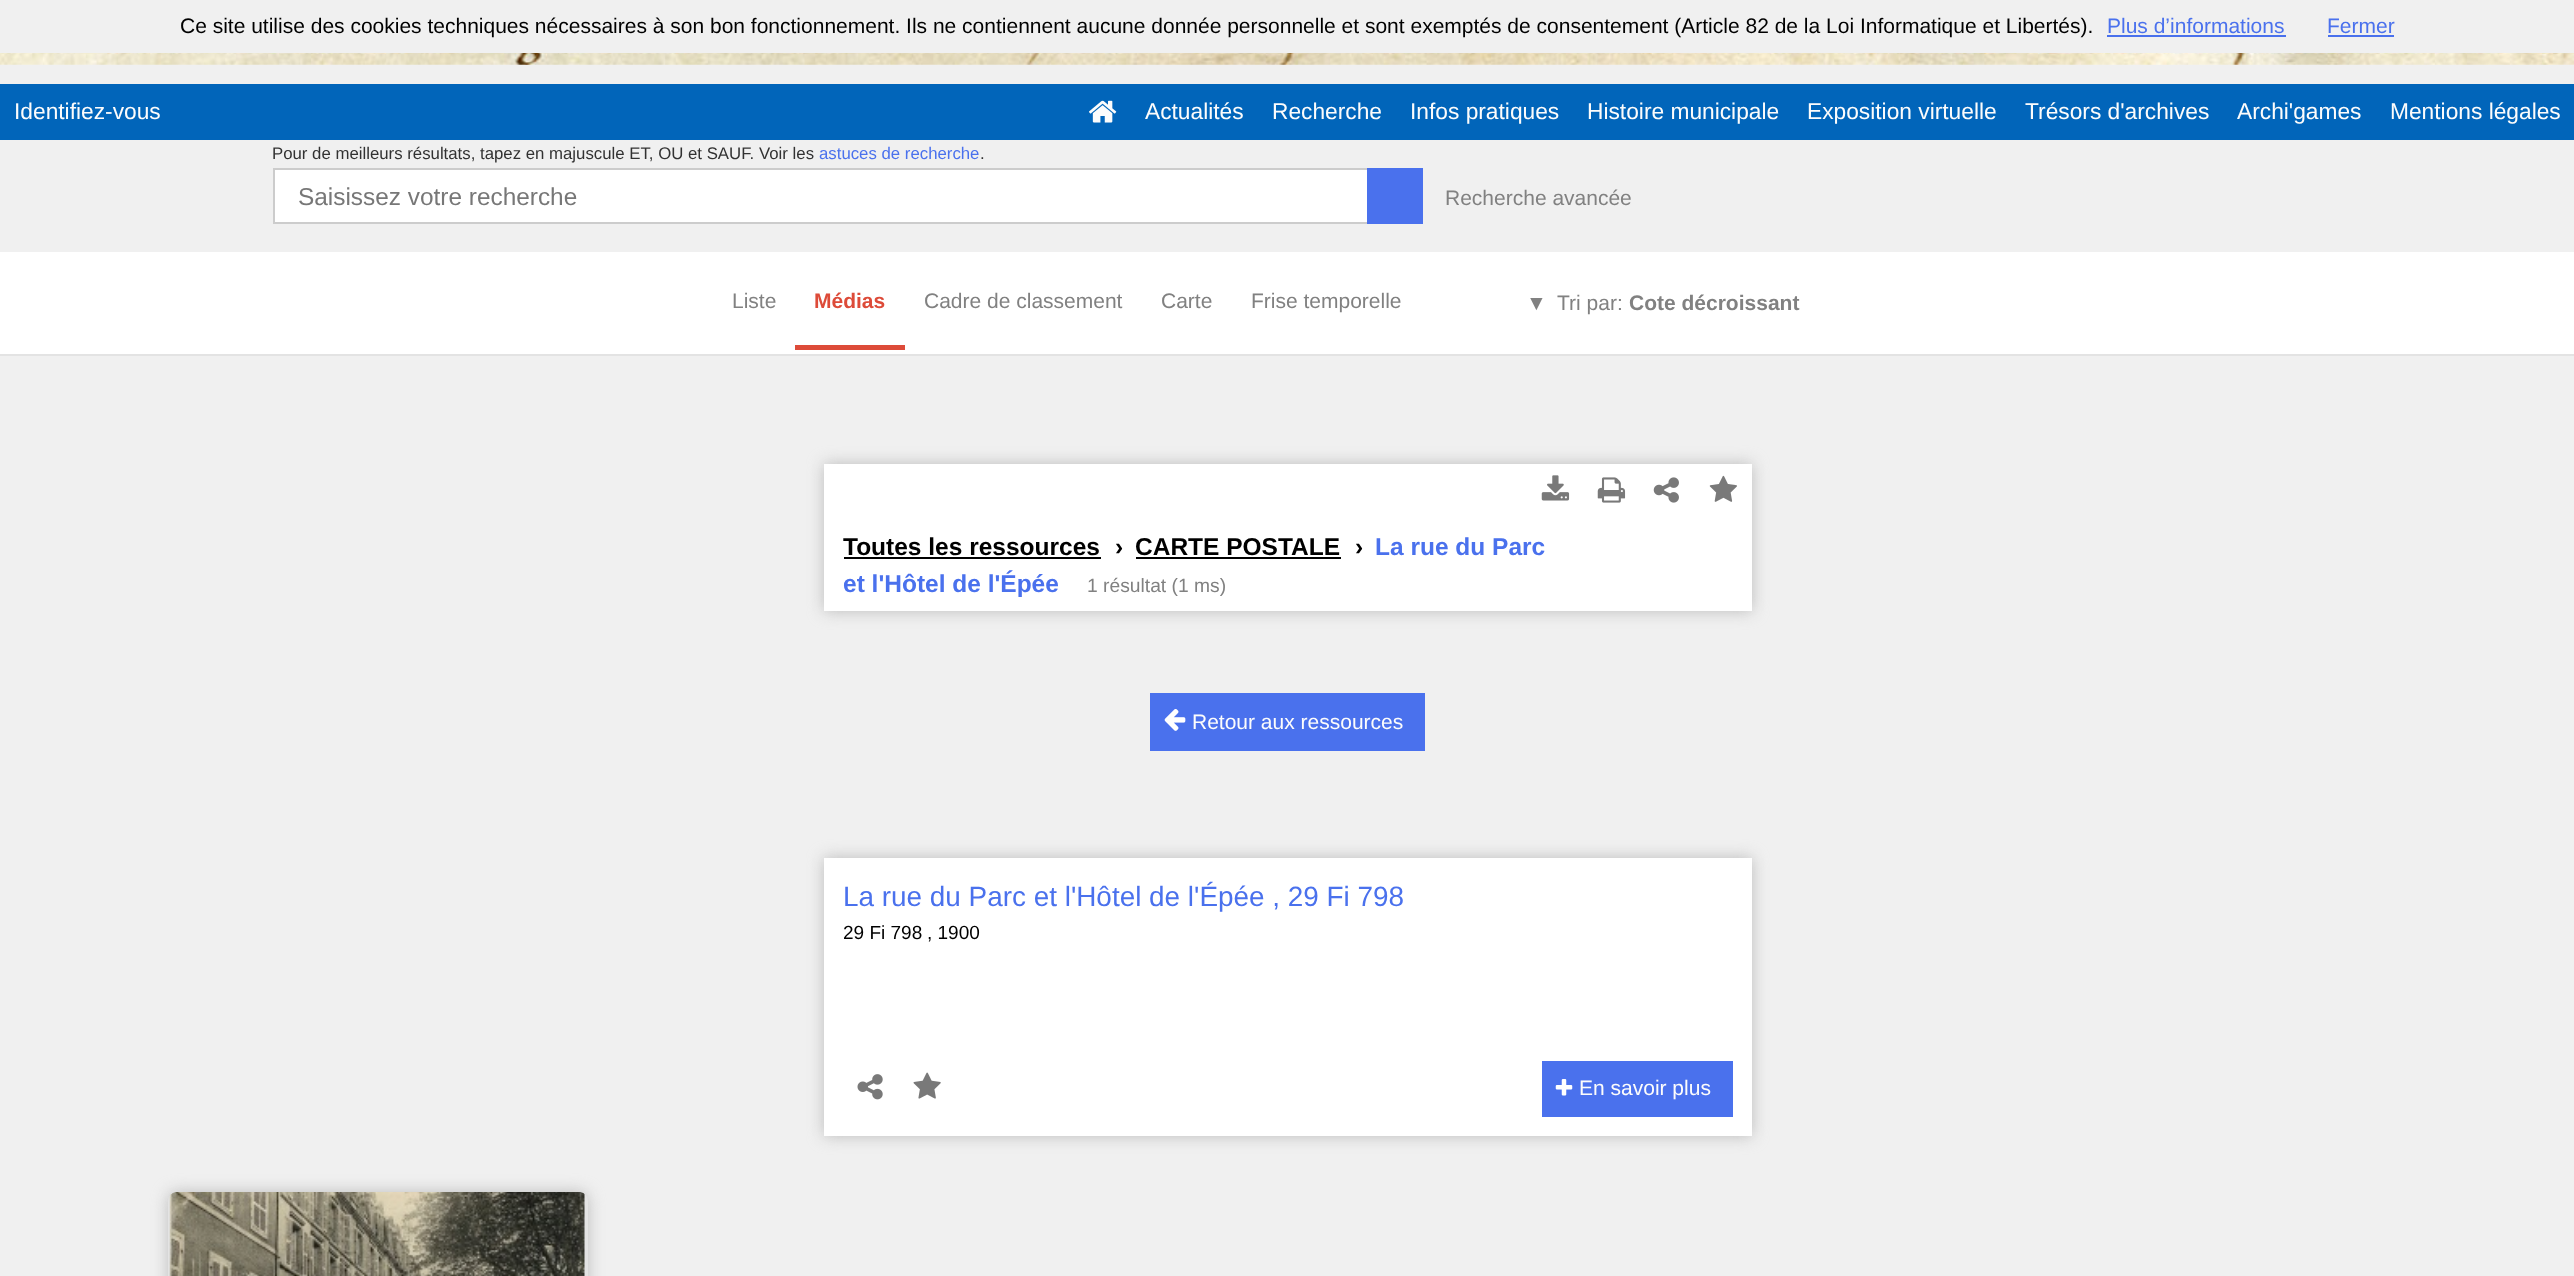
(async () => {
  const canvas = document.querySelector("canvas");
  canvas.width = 2574;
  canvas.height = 1276;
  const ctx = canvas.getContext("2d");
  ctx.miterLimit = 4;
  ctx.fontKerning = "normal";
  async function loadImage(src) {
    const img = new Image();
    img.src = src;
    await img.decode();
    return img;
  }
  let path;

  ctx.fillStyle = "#f0f0f0";
  ctx.fillRect(0, 0, 2574, 1276);
  ctx.fillStyle = "#4970ec";
  ctx.fillRect(2107, 35, 179, 2);
  ctx.fillRect(2328, 35, 66, 2);
  ctx.drawImage(await loadImage("img/1.png"), 0, 53, 2574, 12);
  ctx.fillStyle = "#0165ba";
  ctx.fillRect(0, 84, 2574, 56);
  ctx.drawImage(await loadImage("img/2.png"), 1089, 100, 28, 23);
  ctx.fillStyle = "#ffffff";
  ctx.fillRect(275, 170, 1092, 52);
  ctx.strokeStyle = "#cccccc";
  ctx.lineWidth = 2;
  ctx.strokeRect(274, 169, 1148, 54);
  for (const [x, y, w, h, color] of [
    [1367, 168, 56, 56, "#4a71ed"],
    [0, 252, 2574, 102, "#ffffff"],
    [0, 354, 2574, 2, "#e3e3e3"],
    [795, 345, 110, 5, "#dd4b39"],
  ]) {
    ctx.fillStyle = color;
    ctx.fillRect(x, y, w, h);
  }
  ctx.fillStyle = "#bbbbbb";
  ctx.filter = "blur(8px)";
  ctx.beginPath();
  ctx.rect(824, 464, 928, 147);
  ctx.fill();
  ctx.filter = "none";
  ctx.fillStyle = "#ffffff";
  ctx.fillRect(824, 464, 928, 147);
  ctx.drawImage(await loadImage("img/3.png"), 1541, 475, 29, 26);
  ctx.drawImage(await loadImage("img/4.png"), 1597, 477, 29, 26);
  ctx.drawImage(await loadImage("img/5.png"), 1653, 477, 26, 26);
  ctx.drawImage(await loadImage("img/6.png"), 1709, 475, 28, 27);
  for (const [x, y, w, h, color] of [
    [844, 557, 257, 2, "#000000"],
    [1136, 557, 205, 2, "#000000"],
    [1150, 693, 275, 58, "#4a71ed"],
  ]) {
    ctx.fillStyle = color;
    ctx.fillRect(x, y, w, h);
  }
  ctx.drawImage(await loadImage("img/7.png"), 1164, 709, 22, 22);
  ctx.fillStyle = "#bbbbbb";
  ctx.filter = "blur(8px)";
  ctx.beginPath();
  ctx.rect(824, 858, 928, 278);
  ctx.fill();
  ctx.filter = "none";
  ctx.fillStyle = "#ffffff";
  ctx.fillRect(824, 858, 928, 278);
  ctx.drawImage(await loadImage("img/8.png"), 857, 1074, 26, 26);
  ctx.drawImage(await loadImage("img/9.png"), 913, 1072, 28, 27);
  ctx.fillStyle = "#4a71ed";
  ctx.fillRect(1542, 1061, 191, 56);
  ctx.drawImage(await loadImage("img/10.png"), 1555, 1079, 18, 17);
  ctx.fillStyle = "#bbbbbb";
  ctx.filter = "blur(8px)";
  ctx.beginPath();
  ctx.roundRect(168, 1192, 420, 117, 9);
  ctx.fill();
  ctx.filter = "none";
  ctx.fillStyle = "#e3e3e3";
  path = new Path2D("M177 1192H579C584 1192 588 1196 588 1201V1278H168V1201C168 1196 172 1192 177 1192Z");
  ctx.fill(path);
  ctx.drawImage(await loadImage("img/11.png"), 169, 1192, 416, 84);
  ctx.font = "21px Liberation Sans";
  ctx.fillStyle = "#000000";
  ctx.fillText("Ce site utilise des cookies techniques nécessaires à son bon fonctionnement. Ils ne contiennent aucune donnée personnelle et sont exemptés de consentement (Article 82 de la Loi Informatique et Libertés).", 180, 33);
  ctx.fillStyle = "#4a71ed";
  ctx.fillText("Plus d’informations", 2107, 33);
  ctx.fillText("Fermer", 2327, 33);
  ctx.font = "22.75px Liberation Sans";
  ctx.fillStyle = "#fcfcfc";
  for (const [text, x, y] of [
    ["Identifiez-vous", 14, 119],
    ["Actualités", 1145, 119],
    ["Recherche", 1272, 119],
    ["Infos pratiques", 1410, 119],
    ["Histoire municipale", 1587, 119],
    ["Exposition virtuelle", 1807, 119],
    ["Trésors d'archives", 2025, 119],
    ["Archi'games", 2237, 119],
    ["Mentions légales", 2390, 119],
  ]) {
    ctx.fillText(text, x, y);
  }
  ctx.font = "16.8px Liberation Sans";
  ctx.fillStyle = "#323232";
  ctx.fillText("Pour de meilleurs résultats, tapez en majuscule ET, OU et SAUF.", 272, 159);
  ctx.fillText("Voir les", 759, 159);
  ctx.fillStyle = "#4a71ed";
  ctx.fillText("astuces de recherche", 819, 159);
  ctx.fillStyle = "#323232";
  ctx.fillText(".", 980, 159);
  ctx.font = "24.4px Liberation Sans";
  ctx.fillStyle = "#777777";
  ctx.fillText("Saisissez votre recherche", 298, 205);
  ctx.font = "21px Liberation Sans";
  ctx.fillStyle = "#818181";
  ctx.fillText("Recherche avancée", 1445, 205);
  ctx.fillText("Liste", 732, 308);
  ctx.font = "bold 21px Liberation Sans";
  ctx.fillStyle = "#dd4b39";
  ctx.fillText("Médias", 814, 308);
  ctx.font = "21px Liberation Sans";
  ctx.fillStyle = "#818181";
  for (const [text, x, y] of [
    ["Cadre de classement", 924, 308],
    ["Carte", 1161, 308],
    ["Frise temporelle", 1251, 308],
    ["▼", 1526, 310],
    ["Tri par:", 1557, 310],
  ]) {
    ctx.fillText(text, x, y);
  }
  ctx.font = "bold 21px Liberation Sans";
  ctx.fillText("Cote décroissant", 1629, 310);
  ctx.font = "bold 24.5px Liberation Sans";
  ctx.fillStyle = "#000000";
  for (const [text, x, y] of [
    ["Toutes les ressources", 843, 555],
    ["›", 1115, 555],
    ["CARTE POSTALE", 1135, 555],
    ["›", 1355, 555],
  ]) {
    ctx.fillText(text, x, y);
  }
  ctx.fillStyle = "#4a71ed";
  ctx.fillText("La rue du Parc", 1375, 555);
  ctx.fillText("et l'Hôtel de l'Épée", 843, 592);
  ctx.font = "19.25px Liberation Sans";
  ctx.fillStyle = "#818181";
  ctx.fillText("1 résultat (1 ms)", 1087, 592);
  ctx.font = "21px Liberation Sans";
  ctx.fillStyle = "#fcfcfc";
  ctx.fillText("Retour aux ressources", 1192, 729);
  ctx.font = "27.9px Liberation Sans";
  ctx.fillStyle = "#4a71ed";
  ctx.fillText("La rue du Parc et l'Hôtel de l'Épée , 29 Fi 798", 843, 906);
  ctx.save();
  ctx.beginPath();
  ctx.rect(844, 917, 889, 30);
  ctx.clip();
  ctx.font = "19px Liberation Sans";
  ctx.fillStyle = "#000000";
  ctx.fillText("29 Fi 798", 843, 939);
  ctx.restore();
  ctx.font = "19px Liberation Sans";
  ctx.fillStyle = "#000000";
  ctx.fillText(", 1900", 927, 939);
  ctx.font = "21px Liberation Sans";
  ctx.fillStyle = "#fcfcfc";
  ctx.fillText("En savoir plus", 1579, 1095);
})();
